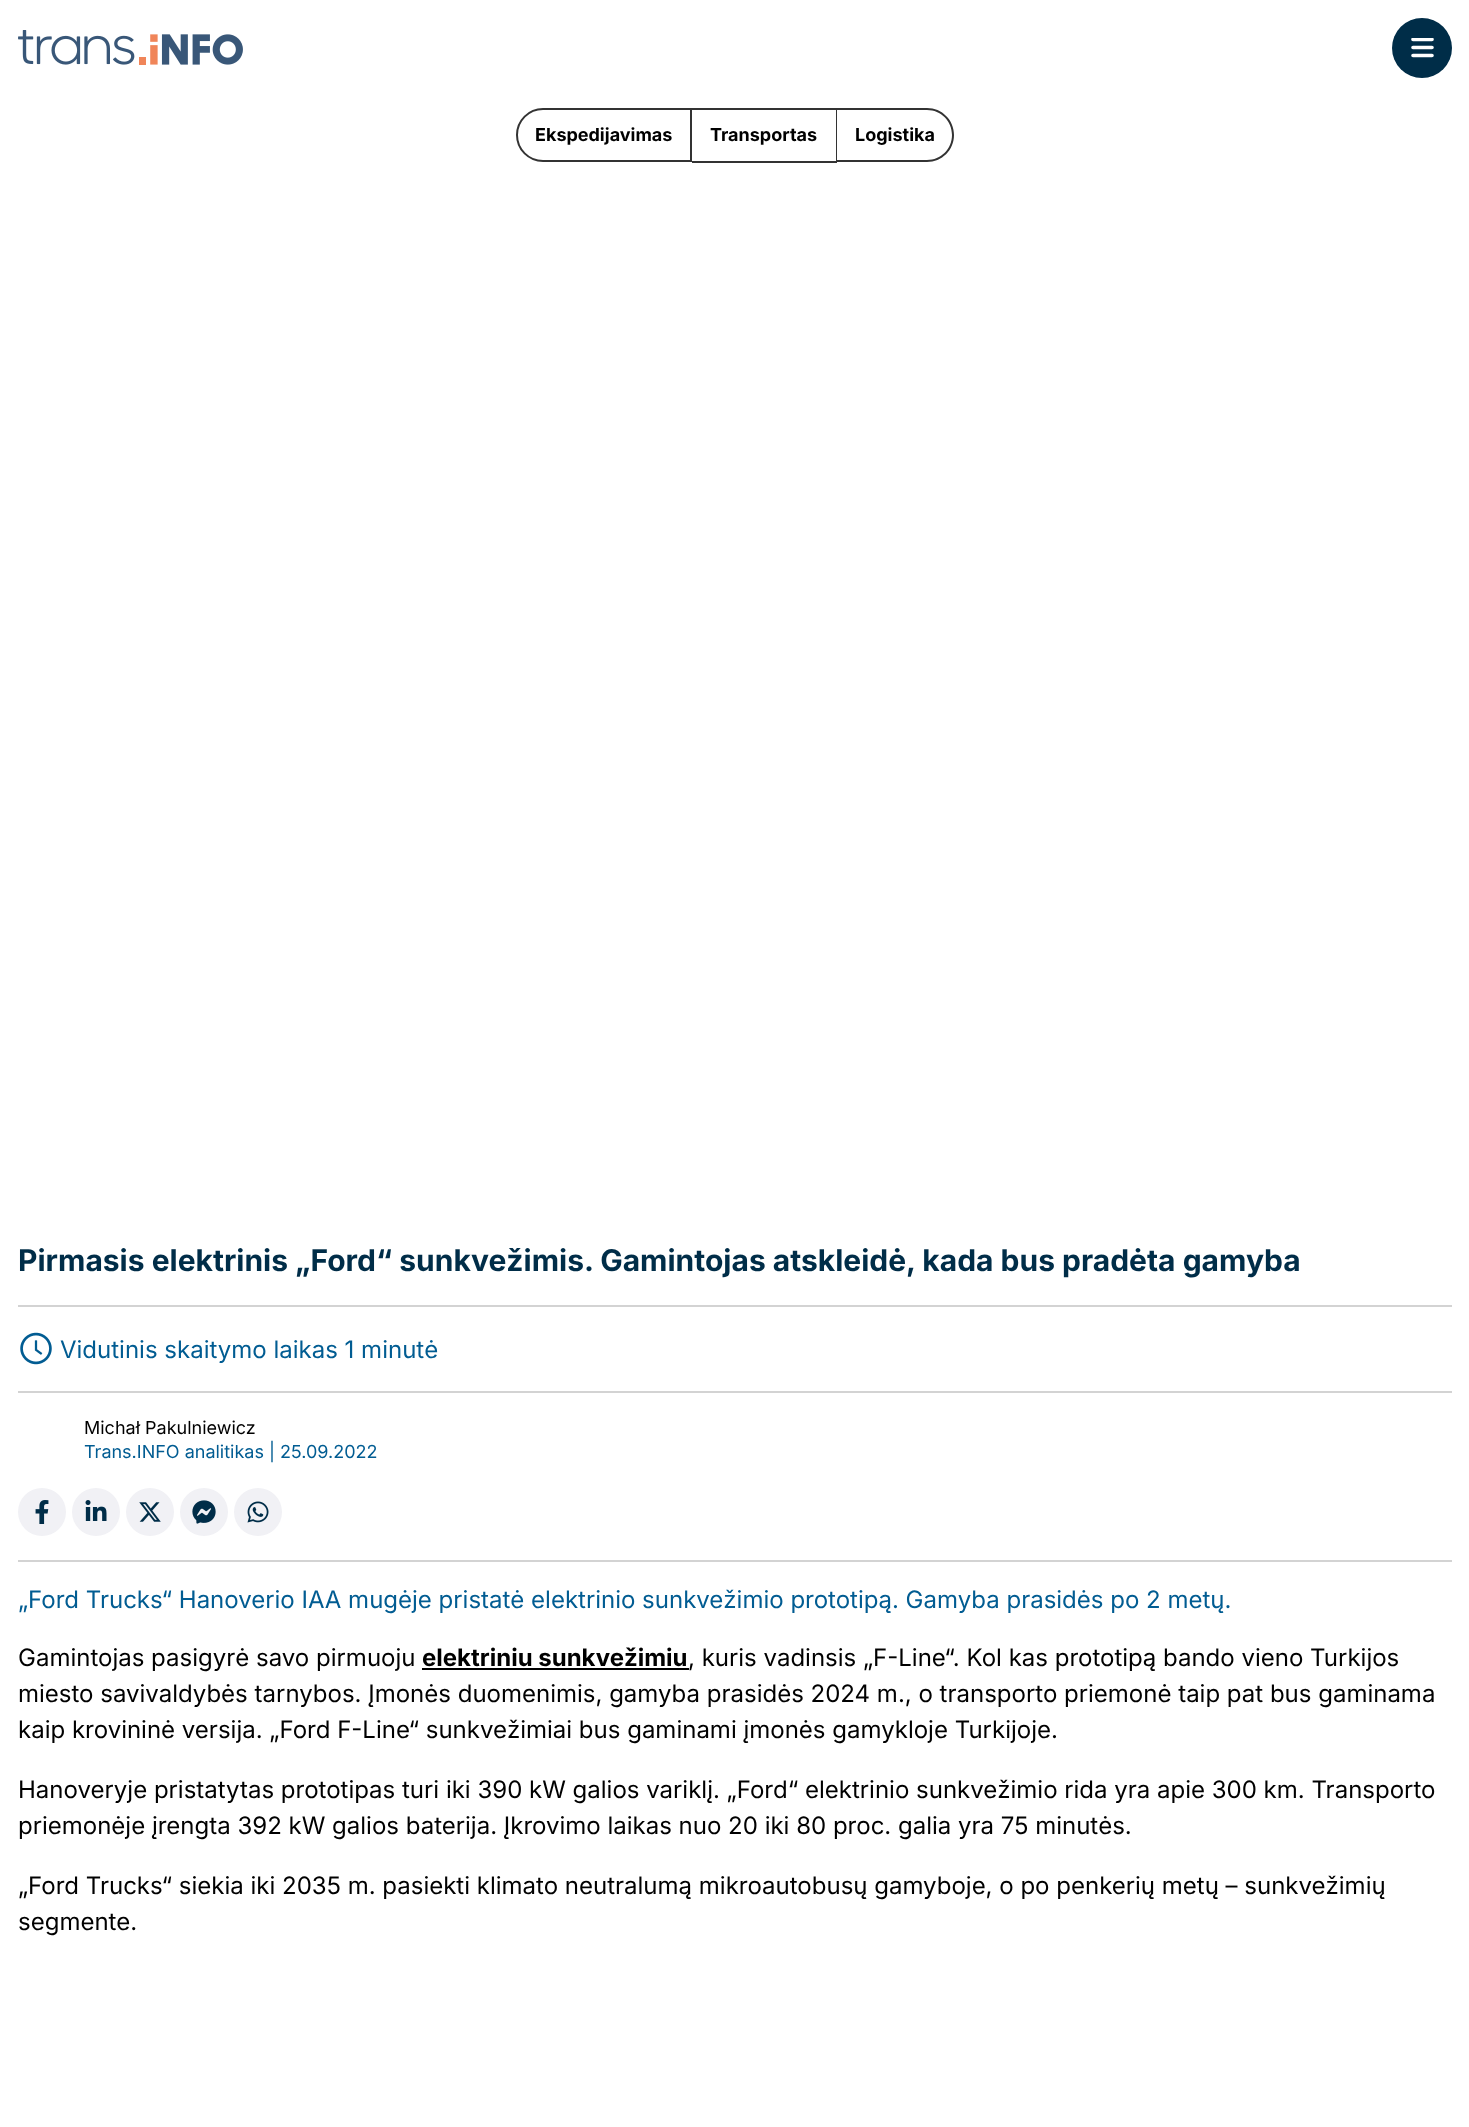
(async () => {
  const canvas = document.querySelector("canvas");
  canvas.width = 1469;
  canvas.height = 2127;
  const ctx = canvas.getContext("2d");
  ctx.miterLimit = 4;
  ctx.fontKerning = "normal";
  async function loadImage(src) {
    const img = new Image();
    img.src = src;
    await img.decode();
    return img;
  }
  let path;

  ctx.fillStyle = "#ffffff";
  ctx.fillRect(0, 0, 1469, 2127);
  ctx.drawImage(await loadImage("img/1.png"), 18, 30, 225, 35);
  ctx.fillStyle = "#002d48";
  ctx.beginPath();
  ctx.arc(1422, 48, 30, 0, Math.PI * 2);
  ctx.fill();
  ctx.save();
  ctx.beginPath();
  ctx.rect(1410, 38, 24, 21);
  ctx.clip();
  path = new Path2D("M1413 39.5H1432M1413 47.5H1432M1413 55.5H1432");
  ctx.strokeStyle = "#ffffff";
  ctx.lineWidth = 3.6;
  ctx.lineCap = "round";
  ctx.stroke(path);
  ctx.restore();
  ctx.beginPath();
  ctx.roundRect(517, 109, 174, 52, [26, 0, 0, 26]);
  ctx.strokeStyle = "#333333";
  ctx.lineWidth = 2;
  ctx.stroke();
  for (const [x, y, w, h, color] of [
    [692, 108, 145, 2, "#333333"],
    [836, 108, 1, 54, "#333333"],
    [692, 161, 145, 2, "#333333"],
  ]) {
    ctx.fillStyle = color;
    ctx.fillRect(x, y, w, h);
  }
  path = new Path2D("M837 108H927C942 108 954 120 954 135C954 150 942 162 927 162H837ZM837 110H927C941 110 952 121 952 135C952 149 941 160 927 160H837Z");
  ctx.fill(path, "evenodd");
  ctx.fillStyle = "#d3d3d3";
  ctx.fillRect(18, 1305, 1434, 2);
  ctx.fillRect(18, 1391, 1434, 2);
  ctx.drawImage(await loadImage("img/2.png"), 20, 1332, 32, 33);
  ctx.fillStyle = "#f1f1f5";
  ctx.beginPath();
  ctx.arc(42, 1512, 24, 0, Math.PI * 2);
  ctx.fill();
  ctx.drawImage(await loadImage("img/3.png"), 35, 1500, 14, 24);
  ctx.beginPath();
  ctx.arc(96, 1512, 24, 0, Math.PI * 2);
  ctx.fill();
  ctx.drawImage(await loadImage("img/4.png"), 85, 1500, 22, 21);
  ctx.beginPath();
  ctx.arc(150, 1512, 24, 0, Math.PI * 2);
  ctx.fill();
  ctx.drawImage(await loadImage("img/5.png"), 139, 1502, 22, 20);
  ctx.beginPath();
  ctx.arc(204, 1512, 24, 0, Math.PI * 2);
  ctx.fill();
  ctx.drawImage(await loadImage("img/6.png"), 192, 1500, 24, 24);
  ctx.beginPath();
  ctx.arc(258, 1512, 24, 0, Math.PI * 2);
  ctx.fill();
  ctx.drawImage(await loadImage("img/7.png"), 247, 1501, 22, 22);
  ctx.fillStyle = "#d3d3d3";
  ctx.fillRect(18, 1560, 1434, 2);
  ctx.fillStyle = "#000000";
  ctx.fillRect(422, 1668, 267, 2);
  ctx.font = "bold 18px Inter";
  for (const [text, x, y] of [
    ["Ekspedijavimas", 535, 141],
    ["Transportas", 710, 141],
    ["Logistika", 855, 141],
  ]) {
    ctx.fillText(text, x, y);
  }
  ctx.font = "bold 30px Inter";
  ctx.fillStyle = "#002d48";
  ctx.fillText("Pirmasis elektrinis „Ford“ sunkvežimis. Gamintojas atskleidė, kada bus pradėta gamyba", 18, 1271);
  ctx.font = "24px Inter";
  ctx.fillStyle = "#015c92";
  ctx.fillText("Vidutinis skaitymo laikas 1 minutė", 60, 1358);
  ctx.font = "18px Inter";
  ctx.fillStyle = "#000000";
  ctx.fillText("Michał Pakulniewicz", 84, 1434);
  ctx.fillStyle = "#015c92";
  ctx.fillText("Trans.INFO analitikas | 25.09.2022", 84, 1458);
  ctx.font = "24px Inter";
  ctx.fillText("„Ford Trucks“ Hanoverio IAA mugėje pristatė elektrinio sunkvežimio prototipą. Gamyba prasidės po 2 metų.", 18, 1608);
  ctx.fillStyle = "#000000";
  ctx.fillText("Gamintojas pasigyrė savo pirmuoju", 18, 1666);
  ctx.font = "bold 24px Inter";
  ctx.fillText("elektriniu sunkvežimiu", 422, 1666);
  ctx.font = "24px Inter";
  for (const [text, x, y] of [
    [", kuris vadinsis „F-Line“. Kol kas prototipą bando vieno Turkijos", 688, 1666],
    ["miesto savivaldybės tarnybos. Įmonės duomenimis, gamyba prasidės 2024 m., o transporto priemonė taip pat bus gaminama", 18, 1702],
    ["kaip krovininė versija. „Ford F-Line“ sunkvežimiai bus gaminami įmonės gamykloje Turkijoje.", 18, 1738],
    ["Hanoveryje pristatytas prototipas turi iki 390 kW galios variklį. „Ford“ elektrinio sunkvežimio rida yra apie 300 km. Transporto", 18, 1798],
    ["priemonėje įrengta 392 kW galios baterija. Įkrovimo laikas nuo 20 iki 80 proc. galia yra 75 minutės.", 18, 1834],
    ["„Ford Trucks“ siekia iki 2035 m. pasiekti klimato neutralumą mikroautobusų gamyboje, o po penkerių metų – sunkvežimių", 18, 1894],
    ["segmente.", 18, 1930],
  ]) {
    ctx.fillText(text, x, y);
  }
})();
